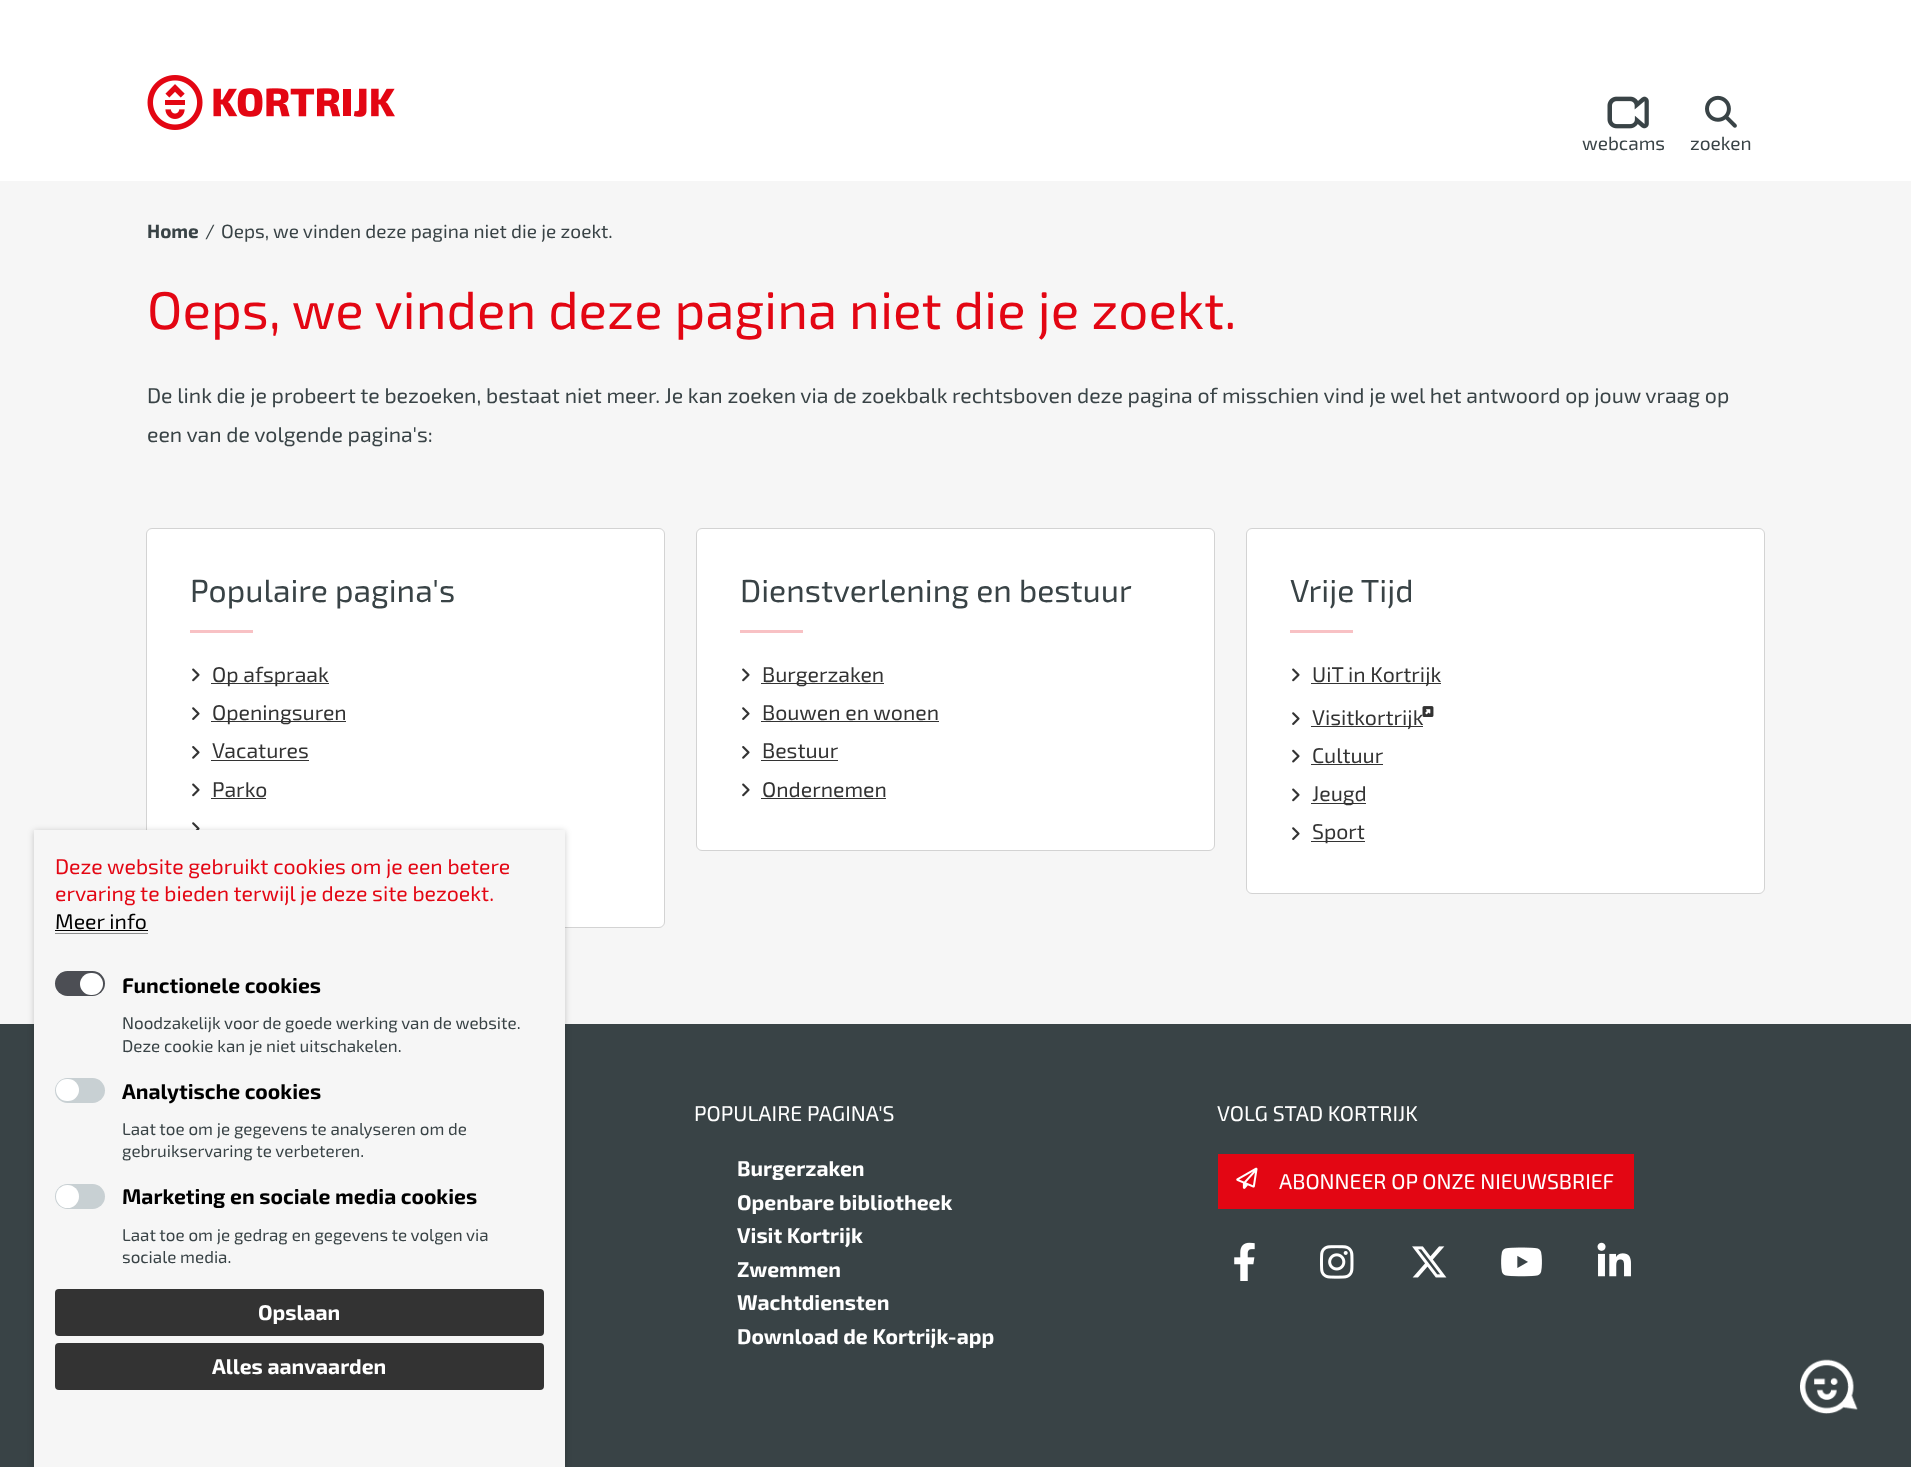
(async () => {
  const canvas = document.querySelector("canvas");
  canvas.width = 1911;
  canvas.height = 1467;
  const ctx = canvas.getContext("2d");
  ctx.miterLimit = 4;
  ctx.fontKerning = "normal";
  async function loadImage(src) {
    const img = new Image();
    img.src = src;
    await img.decode();
    return img;
  }

  ctx.fillStyle = "#f6f6f6";
  ctx.fillRect(0, 0, 1911, 1467);
  ctx.fillStyle = "#ffffff";
  ctx.fillRect(0, 0, 1911, 181);
  ctx.drawImage(await loadImage("img/1.png"), 147, 75, 248, 55);
  ctx.drawImage(await loadImage("img/2.png"), 1607, 96, 42, 33);
  ctx.drawImage(await loadImage("img/3.png"), 1705, 95, 32, 33);
  ctx.beginPath();
  ctx.roundRect(146.5, 528.5, 518, 399, 5.5);
  ctx.fill();
  ctx.strokeStyle = "#d3d3d3";
  ctx.stroke();
  ctx.fillStyle = "#f8c1c4";
  ctx.fillRect(190, 630, 63, 3);
  ctx.drawImage(await loadImage("img/4.png"), 192, 668, 8, 14);
  ctx.fillStyle = "#333333";
  ctx.fillRect(211, 683, 118, 1);
  ctx.drawImage(await loadImage("img/5.png"), 192, 707, 8, 13);
  ctx.fillRect(211, 721, 135, 1);
  ctx.drawImage(await loadImage("img/6.png"), 192, 746, 8, 13);
  ctx.fillRect(211, 760, 98, 1);
  ctx.drawImage(await loadImage("img/4.png"), 192, 783, 8, 14);
  ctx.fillRect(211, 798, 55, 1);
  ctx.drawImage(await loadImage("img/7.png"), 192, 822, 8, 8);
  ctx.fillStyle = "#ffffff";
  ctx.beginPath();
  ctx.roundRect(696.5, 528.5, 518, 322, 5.5);
  ctx.fill();
  ctx.stroke();
  ctx.fillStyle = "#f8c1c4";
  ctx.fillRect(740, 630, 63, 3);
  ctx.drawImage(await loadImage("img/4.png"), 742, 668, 8, 14);
  ctx.fillStyle = "#333333";
  ctx.fillRect(761, 683, 123, 1);
  ctx.drawImage(await loadImage("img/5.png"), 742, 707, 8, 13);
  ctx.fillRect(761, 721, 178, 1);
  ctx.drawImage(await loadImage("img/6.png"), 742, 746, 8, 13);
  ctx.fillRect(761, 760, 77, 1);
  ctx.drawImage(await loadImage("img/4.png"), 742, 783, 8, 14);
  ctx.fillRect(761, 798, 125, 1);
  ctx.fillStyle = "#ffffff";
  ctx.beginPath();
  ctx.roundRect(1246.5, 528.5, 518, 365, 5.5);
  ctx.fill();
  ctx.stroke();
  ctx.fillStyle = "#f8c1c4";
  ctx.fillRect(1290, 630, 63, 3);
  ctx.drawImage(await loadImage("img/4.png"), 1292, 668, 8, 14);
  ctx.fillStyle = "#333333";
  ctx.fillRect(1311, 683, 130, 1);
  ctx.drawImage(await loadImage("img/5.png"), 1292, 712, 8, 13);
  ctx.fillRect(1311, 726, 112, 1);
  ctx.drawImage(await loadImage("img/9.png"), 1292, 749, 8, 14);
  ctx.fillRect(1311, 764, 72, 1);
  ctx.drawImage(await loadImage("img/4.png"), 1292, 788, 8, 14);
  ctx.fillRect(1311, 803, 55, 1);
  ctx.drawImage(await loadImage("img/5.png"), 1292, 827, 8, 13);
  for (const [x, y, w, h, color] of [
    [1311, 841, 54, 1, "#333333"],
    [0, 1024, 1911, 443, "#394346"],
    [1218, 1154, 416, 55, "#e30613"],
  ]) {
    ctx.fillStyle = color;
    ctx.fillRect(x, y, w, h);
  }
  ctx.drawImage(await loadImage("img/10.png"), 1236, 1167, 22, 22);
  ctx.drawImage(await loadImage("img/11.png"), 1234, 1242, 21, 39);
  ctx.drawImage(await loadImage("img/12.png"), 1320, 1245, 34, 34);
  ctx.drawImage(await loadImage("img/13.png"), 1412, 1246, 35, 32);
  ctx.drawImage(await loadImage("img/14.png"), 1501, 1247, 41, 30);
  ctx.drawImage(await loadImage("img/15.png"), 1597, 1242, 34, 35);
  ctx.fillStyle = "rgba(0, 0, 0, 0.2)";
  ctx.filter = "blur(3px)";
  ctx.beginPath();
  ctx.rect(34, 831, 531, 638);
  ctx.fill();
  ctx.filter = "none";
  for (const [x, y, w, h, color] of [
    [34, 830, 531, 637, "#f6f6f6"],
    [55, 933, 93, 1, "#8c8d8d"],
    [55, 930, 93, 1, "#000000"],
  ]) {
    ctx.fillStyle = color;
    ctx.fillRect(x, y, w, h);
  }
  ctx.fillStyle = "#4c4e54";
  ctx.beginPath();
  ctx.roundRect(55, 971, 50, 25, 12.5);
  ctx.fill();
  ctx.fillStyle = "#ffffff";
  ctx.beginPath();
  ctx.roundRect(80, 973, 23, 22, 11);
  ctx.fill();
  ctx.fillStyle = "#c8d0d3";
  ctx.beginPath();
  ctx.roundRect(55, 1078, 50, 25, 12.5);
  ctx.fill();
  ctx.fillStyle = "#ffffff";
  ctx.beginPath();
  ctx.roundRect(56, 1079, 23, 22, 11);
  ctx.fill();
  ctx.fillStyle = "#c8d0d3";
  ctx.beginPath();
  ctx.roundRect(55, 1184, 50, 25, 12.5);
  ctx.fill();
  ctx.fillStyle = "#ffffff";
  ctx.beginPath();
  ctx.arc(67.5, 1196.5, 11.5, 0, Math.PI * 2);
  ctx.fill();
  ctx.fillStyle = "#333333";
  ctx.beginPath();
  ctx.roundRect(55, 1289, 489, 47, 4);
  ctx.fill();
  ctx.beginPath();
  ctx.roundRect(55, 1343, 489, 47, 4);
  ctx.fill();
  ctx.drawImage(await loadImage("img/16.png"), 1800, 1359, 58, 55);
  ctx.font = "19.1px 'Exo 2'";
  ctx.fillStyle = "#394346";
  ctx.fillText("webcams", 1582, 150);
  ctx.fillText("zoeken", 1690, 150);
  ctx.font = "bold 19.1px 'Exo 2'";
  ctx.fillText("Home", 147, 238);
  ctx.font = "19.1px 'Exo 2'";
  ctx.fillText("/", 205, 238);
  ctx.fillText("Oeps, we vinden deze pagina niet die je zoekt.", 221, 238);
  ctx.font = "53.1px 'Exo 2'";
  ctx.fillStyle = "#e30613";
  ctx.fillText("Oeps, we vinden deze pagina niet die je zoekt.", 147, 329);
  ctx.font = "21.25px 'Exo 2'";
  ctx.fillStyle = "#394346";
  ctx.fillText("De link die je probeert te bezoeken, bestaat niet meer. Je kan zoeken via de zoekbalk rechtsboven deze pagina of misschien vind je wel het antwoord op jouw vraag op", 147, 403);
  ctx.fillText("een van de volgende pagina's:", 147, 442);
  ctx.font = "31.9px 'Exo 2'";
  ctx.fillText("Populaire pagina's", 190, 602);
  ctx.font = "21.25px 'Exo 2'";
  ctx.fillStyle = "#333333";
  for (const [text, x, y] of [
    ["Op afspraak", 212, 682],
    ["Openingsuren", 212, 720],
    ["Vacatures", 212, 758],
    ["Parko", 212, 797],
  ]) {
    ctx.fillText(text, x, y);
  }
  ctx.font = "31.9px 'Exo 2'";
  ctx.fillStyle = "#394346";
  ctx.fillText("Dienstverlening en bestuur", 740, 602);
  ctx.font = "21.25px 'Exo 2'";
  ctx.fillStyle = "#333333";
  for (const [text, x, y] of [
    ["Burgerzaken", 762, 682],
    ["Bouwen en wonen", 762, 720],
    ["Bestuur", 762, 758],
    ["Ondernemen", 762, 797],
  ]) {
    ctx.fillText(text, x, y);
  }
  ctx.font = "31.9px 'Exo 2'";
  ctx.fillStyle = "#394346";
  ctx.fillText("Vrije Tijd", 1290, 602);
  ctx.font = "21.25px 'Exo 2'";
  ctx.fillStyle = "#333333";
  ctx.fillText("UiT in Kortrijk", 1312, 682);
  ctx.fillText("Visitkortrijk", 1312, 725);
  ctx.drawImage(await loadImage("img/8.png"), 1422, 706, 12, 11);
  for (const [text, x, y] of [
    ["Cultuur", 1312, 763],
    ["Jeugd", 1312, 801],
    ["Sport", 1312, 839],
  ]) {
    ctx.fillText(text, x, y);
  }
  ctx.fillStyle = "#ffffff";
  ctx.fillText("POPULAIRE PAGINA'S", 694, 1121);
  ctx.font = "bold 21.25px 'Exo 2'";
  for (const [text, x, y] of [
    ["Burgerzaken", 737, 1176],
    ["Openbare bibliotheek", 737, 1210],
    ["Visit Kortrijk", 737, 1243],
    ["Zwemmen", 737, 1277],
    ["Wachtdiensten", 737, 1310],
    ["Download de Kortrijk-app", 737, 1344],
  ]) {
    ctx.fillText(text, x, y);
  }
  ctx.font = "21.25px 'Exo 2'";
  ctx.fillText("VOLG STAD KORTRIJK", 1217, 1121);
  ctx.fillText("ABONNEER OP ONZE NIEUWSBRIEF", 1279, 1189);
  ctx.fillStyle = "#e30613";
  ctx.fillText("Deze website gebruikt cookies om je een betere", 55, 874);
  ctx.fillText("ervaring te bieden terwijl je deze site bezoekt.", 55, 901);
  ctx.fillStyle = "#000000";
  ctx.fillText("Meer info", 55, 929);
  ctx.font = "bold 21.25px 'Exo 2'";
  ctx.fillText("Functionele cookies", 122, 993);
  ctx.font = "17px 'Exo 2'";
  ctx.fillStyle = "#394346";
  ctx.fillText("Noodzakelijk voor de goede werking van de website.", 122, 1029);
  ctx.fillText("Deze cookie kan je niet uitschakelen.", 122, 1052);
  ctx.font = "bold 21.25px 'Exo 2'";
  ctx.fillStyle = "#000000";
  ctx.fillText("Analytische cookies", 122, 1099);
  ctx.font = "17px 'Exo 2'";
  ctx.fillStyle = "#394346";
  ctx.fillText("Laat toe om je gegevens te analyseren om de", 122, 1135);
  ctx.fillText("gebruikservaring te verbeteren.", 122, 1157);
  ctx.font = "bold 21.25px 'Exo 2'";
  ctx.fillStyle = "#000000";
  ctx.fillText("Marketing en sociale media cookies", 122, 1204);
  ctx.font = "17px 'Exo 2'";
  ctx.fillStyle = "#394346";
  ctx.fillText("Laat toe om je gedrag en gegevens te volgen via", 122, 1241);
  ctx.fillText("sociale media.", 122, 1263);
  ctx.font = "bold 21.25px 'Exo 2'";
  ctx.fillStyle = "#ffffff";
  ctx.fillText("Opslaan", 258, 1320);
  ctx.fillText("Alles aanvaarden", 212, 1374);
})();
